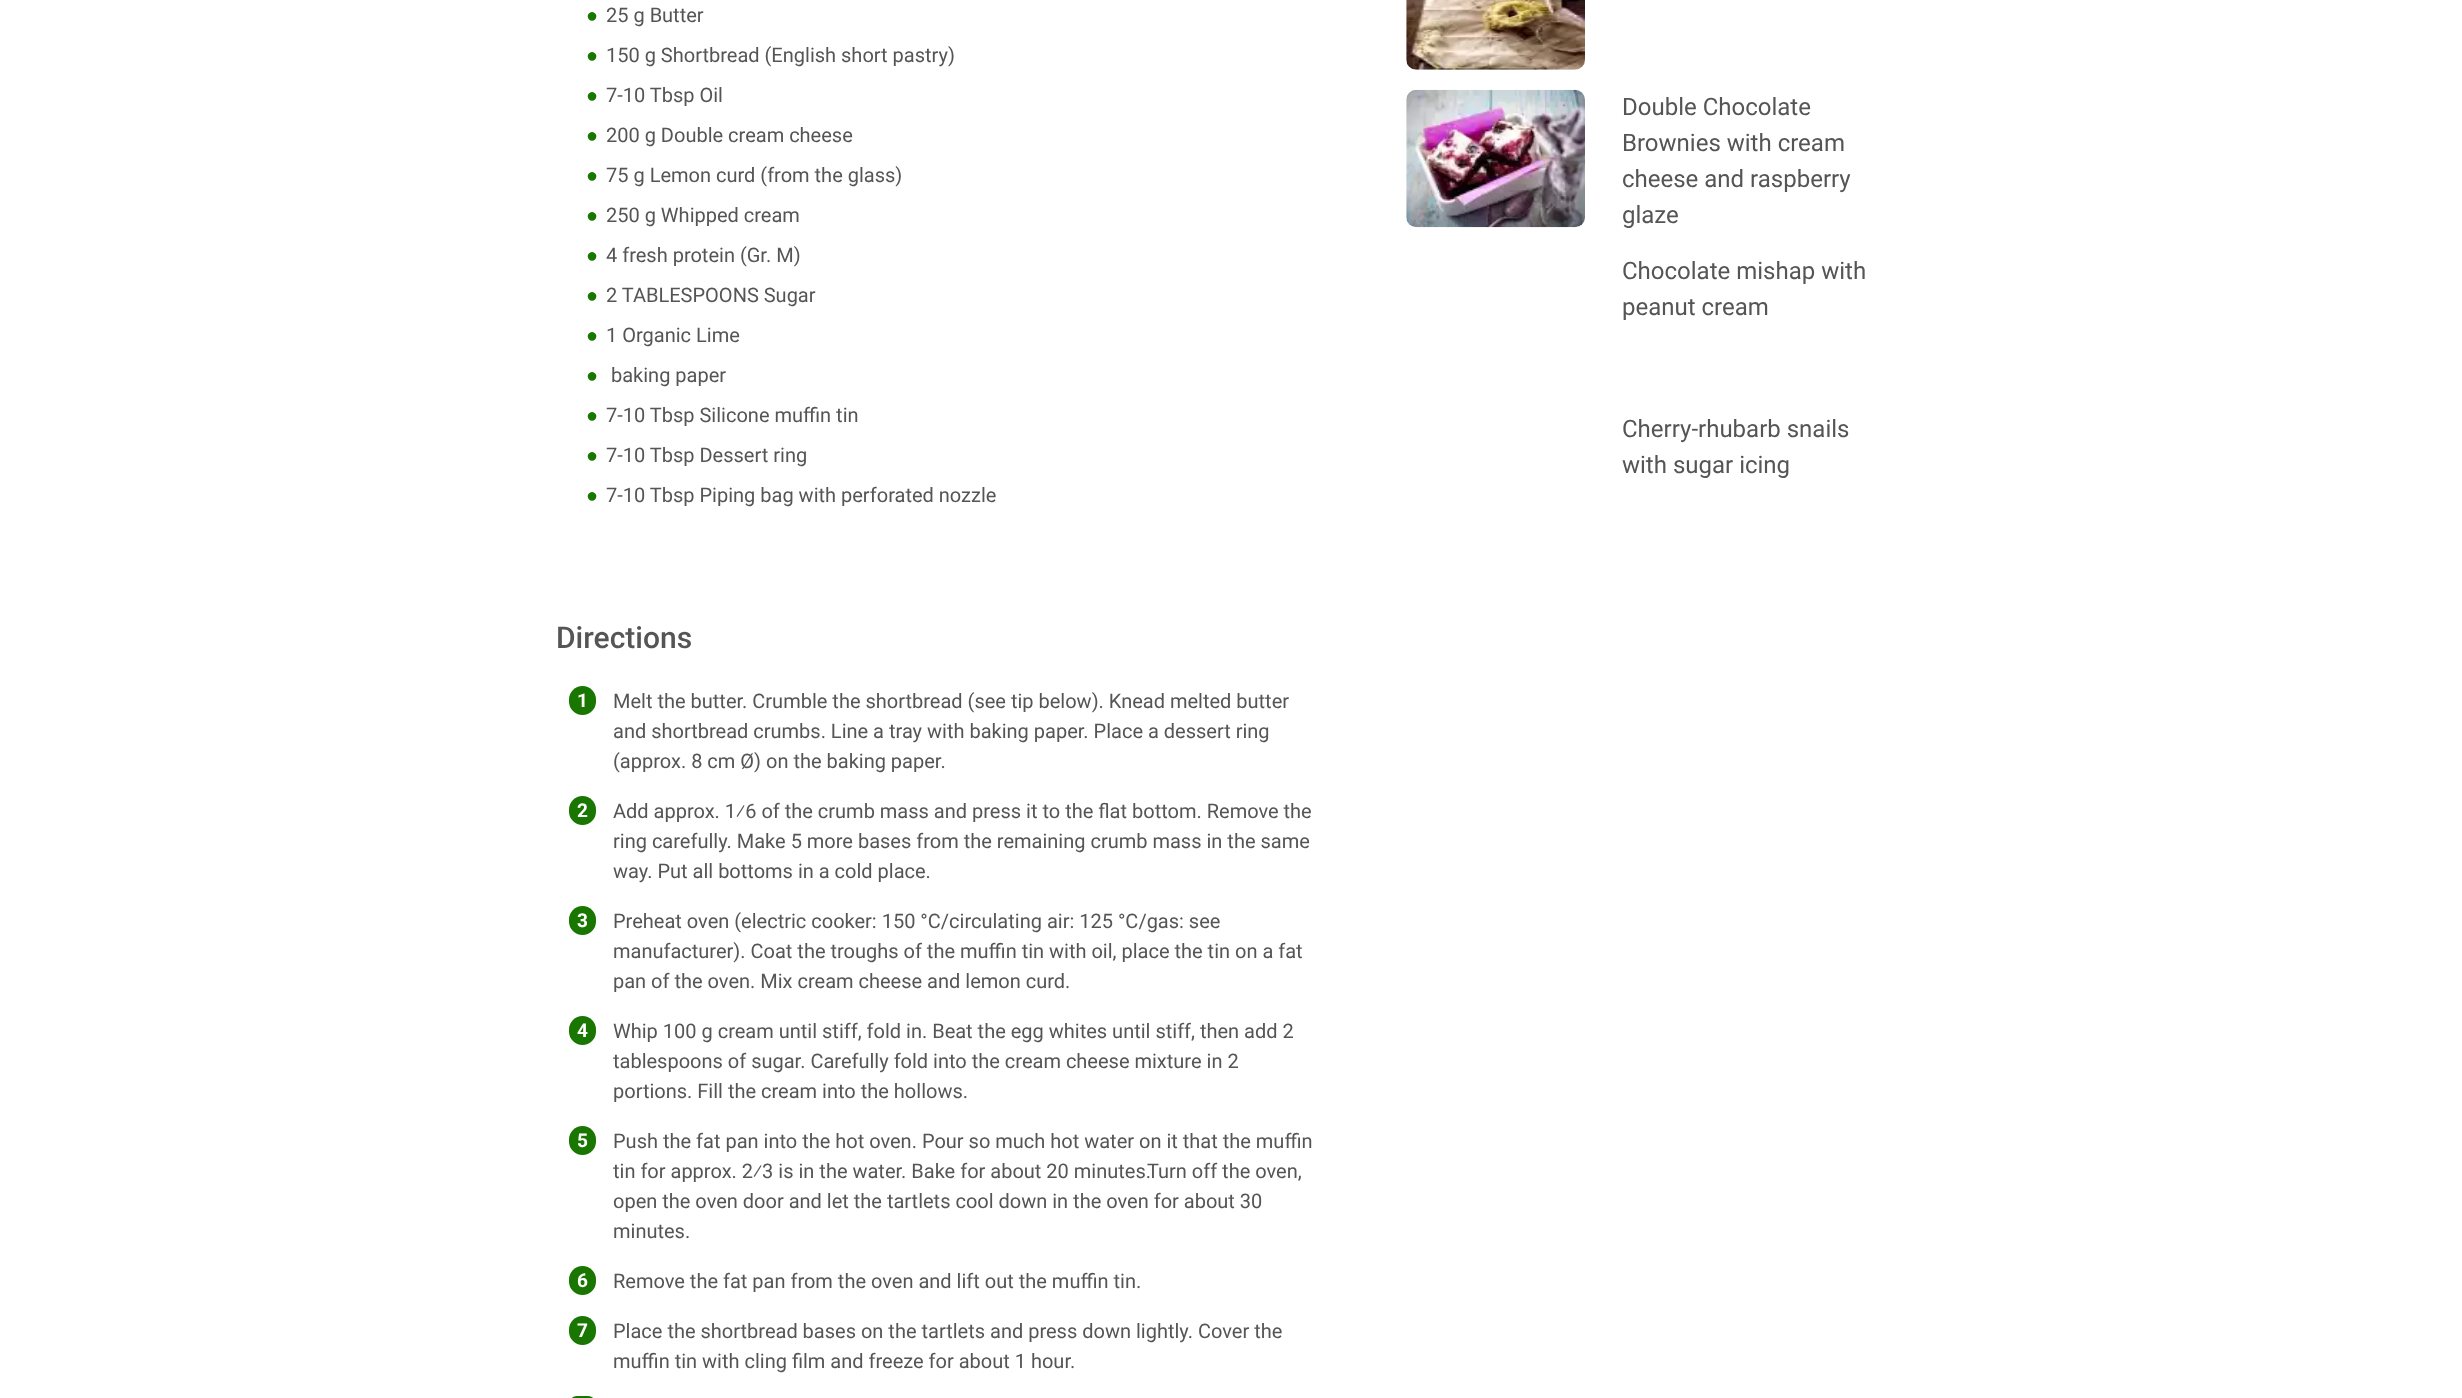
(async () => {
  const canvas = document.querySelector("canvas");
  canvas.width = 2462;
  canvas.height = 1398;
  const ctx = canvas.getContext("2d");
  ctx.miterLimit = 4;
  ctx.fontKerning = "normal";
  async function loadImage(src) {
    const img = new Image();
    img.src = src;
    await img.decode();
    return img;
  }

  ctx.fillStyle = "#ffffff";
  ctx.fillRect(0, 0, 2462, 1398);
  ctx.fillStyle = "#197600";
  ctx.beginPath();
  ctx.roundRect(569, 686, 27, 29, 13.5);
  ctx.fill();
  ctx.beginPath();
  ctx.roundRect(569, 796, 27, 29, 13.5);
  ctx.fill();
  ctx.beginPath();
  ctx.roundRect(569, 906, 27, 29, 13.5);
  ctx.fill();
  ctx.beginPath();
  ctx.roundRect(569, 1016, 27, 29, 13.5);
  ctx.fill();
  ctx.beginPath();
  ctx.roundRect(569, 1126, 27, 29, 13.5);
  ctx.fill();
  ctx.beginPath();
  ctx.roundRect(569, 1266, 27, 29, 13.5);
  ctx.fill();
  ctx.beginPath();
  ctx.roundRect(569, 1316, 27, 29, 13.5);
  ctx.fill();
  ctx.beginPath();
  ctx.roundRect(569, 1396, 27, 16, 13.5);
  ctx.fill();
  ctx.drawImage(await loadImage("img/1.png"), 1406, 0, 179, 70);
  ctx.drawImage(await loadImage("img/2.png"), 1406, 89, 179, 139);
  ctx.font = "bold 20px Liberation Sans";
  ctx.fillText("●", 586, 22);
  ctx.font = "20px Roboto";
  ctx.fillStyle = "#555555";
  ctx.fillText("25 g Butter", 606, 22);
  ctx.font = "bold 20px Liberation Sans";
  ctx.fillStyle = "#197600";
  ctx.fillText("●", 586, 62);
  ctx.font = "20px Roboto";
  ctx.fillStyle = "#555555";
  ctx.fillText("150 g Shortbread (English short pastry)", 606, 62);
  ctx.font = "bold 20px Liberation Sans";
  ctx.fillStyle = "#197600";
  ctx.fillText("●", 586, 102);
  ctx.font = "20px Roboto";
  ctx.fillStyle = "#555555";
  ctx.fillText("7-10 Tbsp Oil", 606, 102);
  ctx.font = "bold 20px Liberation Sans";
  ctx.fillStyle = "#197600";
  ctx.fillText("●", 586, 142);
  ctx.font = "20px Roboto";
  ctx.fillStyle = "#555555";
  ctx.fillText("200 g Double cream cheese", 606, 142);
  ctx.font = "bold 20px Liberation Sans";
  ctx.fillStyle = "#197600";
  ctx.fillText("●", 586, 182);
  ctx.font = "20px Roboto";
  ctx.fillStyle = "#555555";
  ctx.fillText("75 g Lemon curd (from the glass)", 606, 182);
  ctx.font = "bold 20px Liberation Sans";
  ctx.fillStyle = "#197600";
  ctx.fillText("●", 586, 222);
  ctx.font = "20px Roboto";
  ctx.fillStyle = "#555555";
  ctx.fillText("250 g Whipped cream", 606, 222);
  ctx.font = "bold 20px Liberation Sans";
  ctx.fillStyle = "#197600";
  ctx.fillText("●", 586, 262);
  ctx.font = "20px Roboto";
  ctx.fillStyle = "#555555";
  ctx.fillText("4 fresh protein (Gr. M)", 606, 262);
  ctx.font = "bold 20px Liberation Sans";
  ctx.fillStyle = "#197600";
  ctx.fillText("●", 586, 302);
  ctx.font = "20px Roboto";
  ctx.fillStyle = "#555555";
  ctx.fillText("2 TABLESPOONS Sugar", 606, 302);
  ctx.font = "bold 20px Liberation Sans";
  ctx.fillStyle = "#197600";
  ctx.fillText("●", 586, 342);
  ctx.font = "20px Roboto";
  ctx.fillStyle = "#555555";
  ctx.fillText("1 Organic Lime", 606, 342);
  ctx.font = "bold 20px Liberation Sans";
  ctx.fillStyle = "#197600";
  ctx.fillText("●", 586, 382);
  ctx.font = "20px Roboto";
  ctx.fillStyle = "#555555";
  ctx.fillText("baking paper", 611, 382);
  ctx.font = "bold 20px Liberation Sans";
  ctx.fillStyle = "#197600";
  ctx.fillText("●", 586, 422);
  ctx.font = "20px Roboto";
  ctx.fillStyle = "#555555";
  ctx.fillText("7-10 Tbsp Silicone muffin tin", 606, 422);
  ctx.font = "bold 20px Liberation Sans";
  ctx.fillStyle = "#197600";
  ctx.fillText("●", 586, 462);
  ctx.font = "20px Roboto";
  ctx.fillStyle = "#555555";
  ctx.fillText("7-10 Tbsp Dessert ring", 606, 462);
  ctx.font = "bold 20px Liberation Sans";
  ctx.fillStyle = "#197600";
  ctx.fillText("●", 586, 502);
  ctx.font = "20px Roboto";
  ctx.fillStyle = "#555555";
  ctx.fillText("7-10 Tbsp Piping bag with perforated nozzle", 606, 502);
  ctx.font = "500 30px Roboto";
  ctx.fillText("Directions", 556, 648);
  ctx.font = "bold 19px Roboto";
  ctx.fillStyle = "#ffffff";
  ctx.fillText("1", 577, 707);
  ctx.font = "20px Roboto";
  ctx.fillStyle = "#555555";
  for (const [text, x, y] of [
    ["Melt the butter. Crumble the shortbread (see tip below). Knead melted butter", 613, 708],
    ["and shortbread crumbs. Line a tray with baking paper. Place a dessert ring", 613, 738],
    ["(approx. 8 cm Ø) on the baking paper.", 613, 768],
  ]) {
    ctx.fillText(text, x, y);
  }
  ctx.font = "bold 19px Roboto";
  ctx.fillStyle = "#ffffff";
  ctx.fillText("2", 577, 817);
  ctx.font = "20px Roboto";
  ctx.fillStyle = "#555555";
  for (const [text, x, y] of [
    ["Add approx. 1⁄6 of the crumb mass and press it to the flat bottom. Remove the", 613, 818],
    ["ring carefully. Make 5 more bases from the remaining crumb mass in the same", 613, 848],
    ["way. Put all bottoms in a cold place.", 613, 878],
  ]) {
    ctx.fillText(text, x, y);
  }
  ctx.font = "bold 19px Roboto";
  ctx.fillStyle = "#ffffff";
  ctx.fillText("3", 577, 927);
  ctx.font = "20px Roboto";
  ctx.fillStyle = "#555555";
  for (const [text, x, y] of [
    ["Preheat oven (electric cooker: 150 °C/circulating air: 125 °C/gas: see", 613, 928],
    ["manufacturer). Coat the troughs of the muffin tin with oil, place the tin on a fat", 613, 958],
    ["pan of the oven. Mix cream cheese and lemon curd.", 613, 988],
  ]) {
    ctx.fillText(text, x, y);
  }
  ctx.font = "bold 19px Roboto";
  ctx.fillStyle = "#ffffff";
  ctx.fillText("4", 577, 1037);
  ctx.font = "20px Roboto";
  ctx.fillStyle = "#555555";
  for (const [text, x, y] of [
    ["Whip 100 g cream until stiff, fold in. Beat the egg whites until stiff, then add 2", 613, 1038],
    ["tablespoons of sugar. Carefully fold into the cream cheese mixture in 2", 613, 1068],
    ["portions. Fill the cream into the hollows.", 613, 1098],
  ]) {
    ctx.fillText(text, x, y);
  }
  ctx.font = "bold 19px Roboto";
  ctx.fillStyle = "#ffffff";
  ctx.fillText("5", 577, 1147);
  ctx.font = "20px Roboto";
  ctx.fillStyle = "#555555";
  for (const [text, x, y] of [
    ["Push the fat pan into the hot oven. Pour so much hot water on it that the muffin", 613, 1148],
    ["tin for approx. 2⁄3 is in the water. Bake for about 20 minutes.", 613, 1178],
    ["Turn off the oven,", 1147, 1178],
    ["open the oven door and let the tartlets cool down in the oven for about 30", 613, 1208],
    ["minutes.", 613, 1238],
  ]) {
    ctx.fillText(text, x, y);
  }
  ctx.font = "bold 19px Roboto";
  ctx.fillStyle = "#ffffff";
  ctx.fillText("6", 577, 1287);
  ctx.font = "20px Roboto";
  ctx.fillStyle = "#555555";
  ctx.fillText("Remove the fat pan from the oven and lift out the muffin tin.", 613, 1288);
  ctx.font = "bold 19px Roboto";
  ctx.fillStyle = "#ffffff";
  ctx.fillText("7", 577, 1337);
  ctx.font = "20px Roboto";
  ctx.fillStyle = "#555555";
  ctx.fillText("Place the shortbread bases on the tartlets and press down lightly. Cover the", 613, 1338);
  ctx.fillText("muffin tin with cling film and freeze for about 1 hour.", 613, 1368);
  ctx.font = "24px Roboto";
  for (const [text, x, y] of [
    ["Double Chocolate", 1622, 115],
    ["Brownies with cream", 1622, 151],
    ["cheese and raspberry", 1622, 187],
    ["glaze", 1622, 223],
    ["Chocolate mishap with", 1622, 279],
    ["peanut cream", 1622, 315],
    ["Cherry-rhubarb snails", 1622, 437],
    ["with sugar icing", 1622, 473],
  ]) {
    ctx.fillText(text, x, y);
  }
})();
